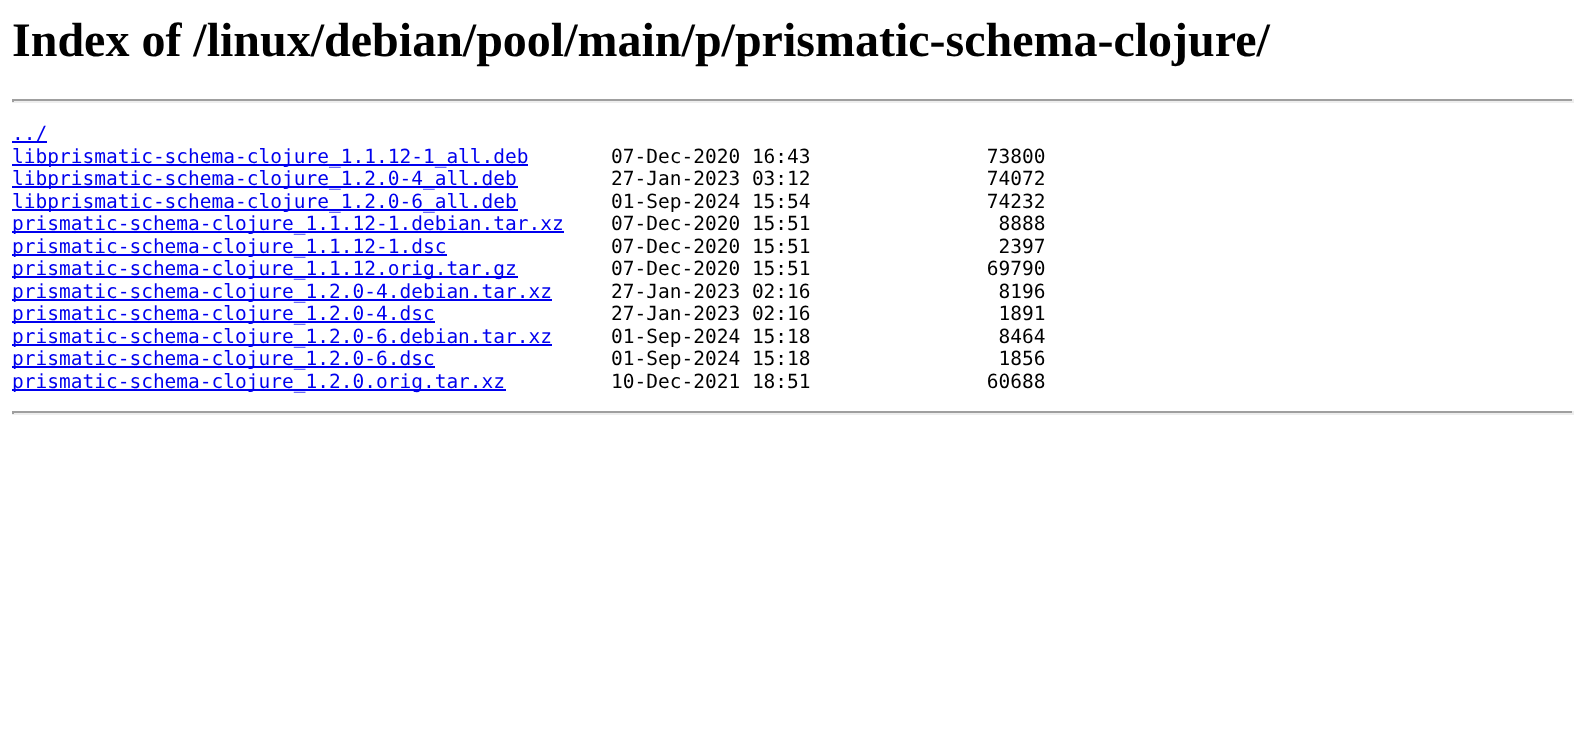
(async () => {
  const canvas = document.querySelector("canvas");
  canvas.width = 1585;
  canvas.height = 735;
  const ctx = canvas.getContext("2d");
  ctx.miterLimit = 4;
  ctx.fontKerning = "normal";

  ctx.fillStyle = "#ffffff";
  ctx.fillRect(0, 0, 1585, 735);
  for (const [x, y, w, h, color] of [
    [12, 99, 1562, 2, "#9f9f9f"],
    [1572, 99, 2, 3, "#eeeeee"],
    [12, 101, 1562, 2, "#eeeeee"],
    [12, 99, 2, 3, "#9f9f9f"],
    [12, 141, 35, 2, "#0000ee"],
    [12, 164, 516, 2, "#0000ee"],
    [12, 186, 506, 2, "#0000ee"],
    [12, 209, 506, 2, "#0000ee"],
    [12, 231, 552, 2, "#0000ee"],
    [12, 254, 435, 2, "#0000ee"],
    [12, 276, 506, 2, "#0000ee"],
    [12, 299, 540, 2, "#0000ee"],
    [12, 321, 423, 2, "#0000ee"],
    [12, 344, 540, 2, "#0000ee"],
    [12, 366, 423, 2, "#0000ee"],
    [12, 389, 494, 2, "#0000ee"],
    [12, 411, 1562, 2, "#9f9f9f"],
    [1572, 411, 2, 3, "#eeeeee"],
    [12, 413, 1562, 2, "#eeeeee"],
    [12, 411, 2, 3, "#9f9f9f"],
  ]) {
    ctx.fillStyle = color;
    ctx.fillRect(x, y, w, h);
  }
  ctx.font = "bold 48px Liberation Serif";
  ctx.fillStyle = "#000000";
  ctx.fillText("Index of /linux/debian/pool/main/p/prismatic-schema-clojure/", 12, 56);
  ctx.font = "19.5px DejaVu Sans Mono";
  ctx.fillStyle = "#0000ee";
  ctx.fillText("../", 12, 140);
  ctx.fillText("libprismatic-schema-clojure_1.1.12-1_all.deb", 12, 163);
  ctx.fillStyle = "#000000";
  ctx.fillText("07-Dec-2020 16:43               73800", 611, 163);
  ctx.fillStyle = "#0000ee";
  ctx.fillText("libprismatic-schema-clojure_1.2.0-4_all.deb", 12, 185);
  ctx.fillStyle = "#000000";
  ctx.fillText("27-Jan-2023 03:12               74072", 611, 185);
  ctx.fillStyle = "#0000ee";
  ctx.fillText("libprismatic-schema-clojure_1.2.0-6_all.deb", 12, 208);
  ctx.fillStyle = "#000000";
  ctx.fillText("01-Sep-2024 15:54               74232", 611, 208);
  ctx.fillStyle = "#0000ee";
  ctx.fillText("prismatic-schema-clojure_1.1.12-1.debian.tar.xz", 12, 230);
  ctx.fillStyle = "#000000";
  ctx.fillText("07-Dec-2020 15:51                8888", 611, 230);
  ctx.fillStyle = "#0000ee";
  ctx.fillText("prismatic-schema-clojure_1.1.12-1.dsc", 12, 253);
  ctx.fillStyle = "#000000";
  ctx.fillText("07-Dec-2020 15:51                2397", 611, 253);
  ctx.fillStyle = "#0000ee";
  ctx.fillText("prismatic-schema-clojure_1.1.12.orig.tar.gz", 12, 275);
  ctx.fillStyle = "#000000";
  ctx.fillText("07-Dec-2020 15:51               69790", 611, 275);
  ctx.fillStyle = "#0000ee";
  ctx.fillText("prismatic-schema-clojure_1.2.0-4.debian.tar.xz", 12, 298);
  ctx.fillStyle = "#000000";
  ctx.fillText("27-Jan-2023 02:16                8196", 611, 298);
  ctx.fillStyle = "#0000ee";
  ctx.fillText("prismatic-schema-clojure_1.2.0-4.dsc", 12, 320);
  ctx.fillStyle = "#000000";
  ctx.fillText("27-Jan-2023 02:16                1891", 611, 320);
  ctx.fillStyle = "#0000ee";
  ctx.fillText("prismatic-schema-clojure_1.2.0-6.debian.tar.xz", 12, 343);
  ctx.fillStyle = "#000000";
  ctx.fillText("01-Sep-2024 15:18                8464", 611, 343);
  ctx.fillStyle = "#0000ee";
  ctx.fillText("prismatic-schema-clojure_1.2.0-6.dsc", 12, 365);
  ctx.fillStyle = "#000000";
  ctx.fillText("01-Sep-2024 15:18                1856", 611, 365);
  ctx.fillStyle = "#0000ee";
  ctx.fillText("prismatic-schema-clojure_1.2.0.orig.tar.xz", 12, 388);
  ctx.fillStyle = "#000000";
  ctx.fillText("10-Dec-2021 18:51               60688", 611, 388);
})();
